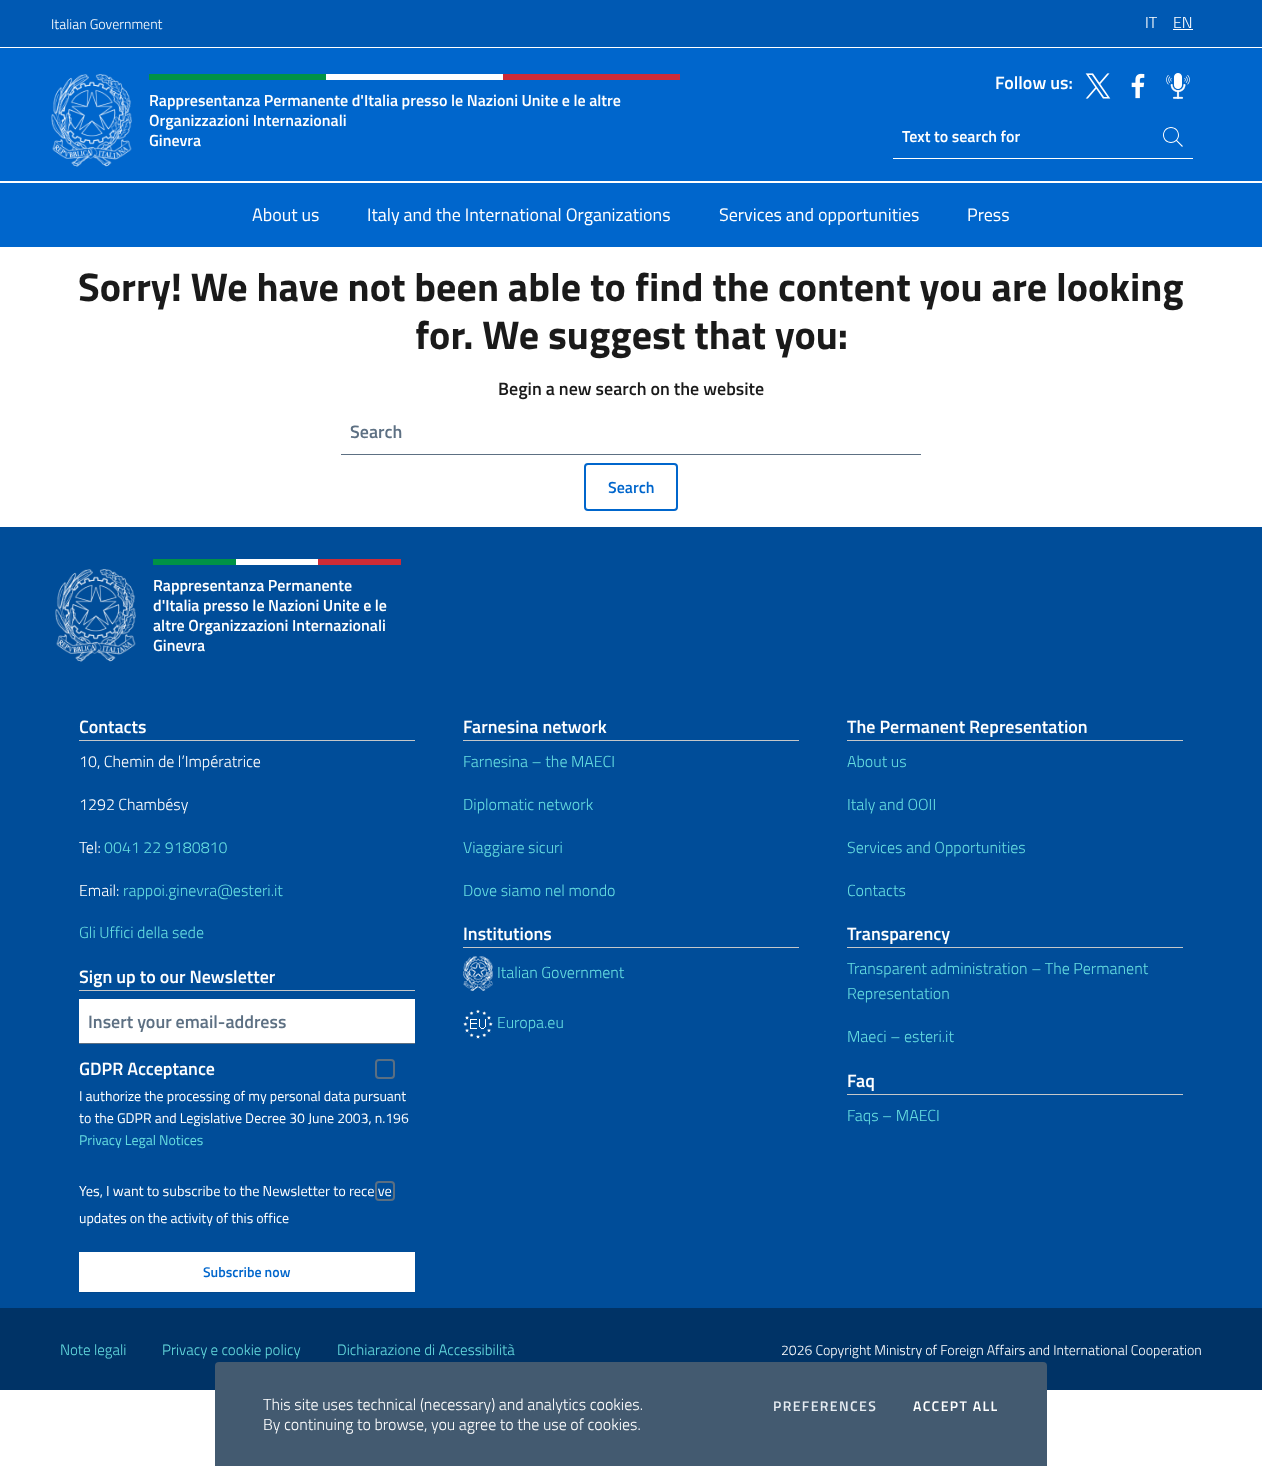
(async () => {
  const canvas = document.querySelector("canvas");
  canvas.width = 1262;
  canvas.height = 1466;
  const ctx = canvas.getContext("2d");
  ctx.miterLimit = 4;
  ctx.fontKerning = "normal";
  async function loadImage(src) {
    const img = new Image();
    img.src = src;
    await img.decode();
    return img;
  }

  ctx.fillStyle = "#ffffff";
  ctx.fillRect(0, 0, 1262, 1466);
  for (const [x, y, w, h, color] of [
    [0, 0, 1262, 47, "#0059b3"],
    [1173, 29, 20, 1, "#ffffff"],
    [0, 48, 1262, 199, "#0066cc"],
  ]) {
    ctx.fillStyle = color;
    ctx.fillRect(x, y, w, h);
  }
  ctx.drawImage(await loadImage("img/1.png"), 51, 74, 81, 93);
  for (const [x, y, w, h, color] of [
    [149, 74, 177, 6, "#009246"],
    [326, 74, 177, 6, "#ffffff"],
    [503, 74, 177, 6, "#ce2b37"],
  ]) {
    ctx.fillStyle = color;
    ctx.fillRect(x, y, w, h);
  }
  ctx.drawImage(await loadImage("img/2.png"), 1085, 73, 26, 26);
  ctx.drawImage(await loadImage("img/3.png"), 1131, 73, 14, 26);
  ctx.drawImage(await loadImage("img/4.png"), 1166, 73, 24, 26);
  ctx.fillStyle = "#ffffff";
  ctx.fillRect(893, 158, 300, 1);
  ctx.drawImage(await loadImage("img/5.png"), 1163, 127, 20, 20);
  ctx.fillRect(0, 181, 1262, 2);
  ctx.fillStyle = "#5d7083";
  ctx.fillRect(341, 454, 580, 1);
  ctx.beginPath();
  ctx.roundRect(585, 464, 92, 46, 3);
  ctx.strokeStyle = "#0066cc";
  ctx.lineWidth = 2;
  ctx.stroke();
  ctx.fillStyle = "#004d99";
  ctx.fillRect(0, 527, 1262, 781);
  ctx.drawImage(await loadImage("img/6.png"), 55, 569, 81, 93);
  for (const [x, y, w, h, color] of [
    [153, 559, 83, 6, "#009246"],
    [236, 559, 82, 6, "#ffffff"],
    [318, 559, 83, 6, "#ce2b37"],
    [79, 740, 336, 1, "#c5c7c9"],
    [79, 990, 336, 1, "#c5c7c9"],
    [79, 999, 336, 44, "#ffffff"],
    [79, 1043, 336, 1, "#5d7083"],
  ]) {
    ctx.fillStyle = color;
    ctx.fillRect(x, y, w, h);
  }
  ctx.beginPath();
  ctx.roundRect(376, 1060, 18, 18, 3);
  ctx.strokeStyle = "#5b6f82";
  ctx.stroke();
  ctx.fillStyle = "rgba(0, 0, 0, 0.07)";
  ctx.filter = "blur(0.5px)";
  ctx.beginPath();
  ctx.rect(79, 1253, 336, 40);
  ctx.fill();
  ctx.filter = "none";
  for (const [x, y, w, h, color] of [
    [79, 1252, 336, 40, "#ffffff"],
    [463, 740, 336, 1, "#c5c7c9"],
    [463, 947, 336, 1, "#c5c7c9"],
  ]) {
    ctx.fillStyle = color;
    ctx.fillRect(x, y, w, h);
  }
  ctx.drawImage(await loadImage("img/7.png"), 463, 956, 30, 35);
  ctx.drawImage(await loadImage("img/8.png"), 463, 1009, 30, 30);
  for (const [x, y, w, h, color] of [
    [847, 740, 336, 1, "#c5c7c9"],
    [847, 947, 336, 1, "#c5c7c9"],
    [847, 1094, 336, 1, "#c5c7c9"],
    [0, 1308, 1262, 82, "#003366"],
  ]) {
    ctx.fillStyle = color;
    ctx.fillRect(x, y, w, h);
  }
  ctx.fillStyle = "#435a70";
  ctx.beginPath();
  ctx.roundRect(215, 1362, 832, 104, [4, 4, 0, 0]);
  ctx.fill();
  ctx.font = "300 14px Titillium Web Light";
  ctx.fillStyle = "#ffffff";
  ctx.fillText("Italian Government", 51, 29);
  ctx.font = "300 16px Titillium Web Light";
  ctx.fillText("IT", 1145, 28);
  ctx.fillText("EN", 1173, 28);
  ctx.font = "600 16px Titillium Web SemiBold";
  for (const [text, x, y] of [
    ["Rappresentanza Permanente d'Italia presso le Nazioni Unite e le altre", 149, 106],
    ["Organizzazioni Internazionali", 149, 126],
    ["Ginevra", 149, 146],
  ]) {
    ctx.fillText(text, x, y);
  }
  ctx.font = "600 18px Titillium Web SemiBold";
  ctx.fillText("Follow us:", 995, 89);
  ctx.font = "600 16px Titillium Web SemiBold";
  ctx.fillText("Text to search for", 902, 142);
  ctx.font = "18px Titillium Web";
  for (const [text, x, y] of [
    ["About us", 252, 221],
    ["Italy and the International Organizations", 367, 221],
    ["Services and opportunities", 719, 221],
    ["Press", 967, 221],
  ]) {
    ctx.fillText(text, x, y);
  }
  ctx.font = "bold 40px Titillium Web";
  ctx.fillStyle = "#1a1a1a";
  ctx.fillText("Sorry! We have not been able to find the content you are looking", 78, 301);
  ctx.fillText("for. We suggest that you:", 415, 349);
  ctx.font = "600 18px Titillium Web SemiBold";
  ctx.fillText("Begin a new search on the website", 498, 395);
  ctx.fillStyle = "#5d7083";
  ctx.fillText("Search", 350, 438);
  ctx.font = "600 16px Titillium Web SemiBold";
  ctx.fillStyle = "#0066cc";
  ctx.fillText("Search", 608, 493);
  ctx.fillStyle = "#ffffff";
  for (const [text, x, y] of [
    ["Rappresentanza Permanente", 153, 591],
    ["d'Italia presso le Nazioni Unite e le", 153, 611],
    ["altre Organizzazioni Internazionali", 153, 631],
    ["Ginevra", 153, 651],
  ]) {
    ctx.fillText(text, x, y);
  }
  ctx.font = "600 18px Titillium Web SemiBold";
  ctx.fillText("Contacts", 79, 733);
  ctx.font = "300 16px Titillium Web Light";
  for (const [text, x, y] of [
    ["10, Chemin de l’Impératrice", 79, 767],
    ["1292 Chambésy", 79, 810],
    ["Tel:", 79, 853],
  ]) {
    ctx.fillText(text, x, y);
  }
  ctx.fillStyle = "#65dde0";
  ctx.fillText("0041 22 9180810", 104, 853);
  ctx.fillStyle = "#ffffff";
  ctx.fillText("Email:", 79, 896);
  ctx.fillStyle = "#65dde0";
  ctx.fillText("rappoi.ginevra@esteri.it", 123, 896);
  ctx.fillText("Gli Uffici della sede", 79, 938);
  ctx.font = "600 18px Titillium Web SemiBold";
  ctx.fillStyle = "#ffffff";
  ctx.fillText("Sign up to our Newsletter", 79, 983);
  ctx.fillStyle = "#5d7083";
  ctx.fillText("Insert your email-address", 88, 1028);
  ctx.fillStyle = "#ffffff";
  ctx.fillText("GDPR Acceptance", 79, 1075);
  ctx.font = "14px Titillium Web";
  ctx.fillText("I authorize the processing of my personal data pursuant", 79, 1101);
  ctx.fillText("to the GDPR and Legislative Decree 30 June 2003, n.196", 79, 1123);
  ctx.fillStyle = "#65dde0";
  ctx.fillText("Privacy Legal Notices", 79, 1145);
  ctx.font = "14.4px Titillium Web";
  ctx.fillStyle = "#ffffff";
  ctx.fillText("Yes, I want to subscribe to the Newsletter to receive", 79, 1196);
  ctx.beginPath();
  ctx.roundRect(376, 1182, 18, 18, 3);
  ctx.stroke();
  ctx.font = "14px Titillium Web";
  ctx.fillText("updates on the activity of this office", 79, 1223);
  ctx.font = "600 14px Titillium Web SemiBold";
  ctx.fillStyle = "#0066cc";
  ctx.fillText("Subscribe now", 203, 1277);
  ctx.font = "600 18px Titillium Web SemiBold";
  ctx.fillStyle = "#ffffff";
  ctx.fillText("Farnesina network", 463, 733);
  ctx.font = "300 16px Titillium Web Light";
  ctx.fillStyle = "#65dde0";
  for (const [text, x, y] of [
    ["Farnesina – the MAECI", 463, 767],
    ["Diplomatic network", 463, 810],
    ["Viaggiare sicuri", 463, 853],
    ["Dove siamo nel mondo", 463, 896],
  ]) {
    ctx.fillText(text, x, y);
  }
  ctx.font = "600 18px Titillium Web SemiBold";
  ctx.fillStyle = "#ffffff";
  ctx.fillText("Institutions", 463, 940);
  ctx.font = "300 16px Titillium Web Light";
  ctx.fillStyle = "#65dde0";
  ctx.fillText("Italian Government", 497, 978);
  ctx.fillText("Europa.eu", 497, 1028);
  ctx.font = "600 18px Titillium Web SemiBold";
  ctx.fillStyle = "#ffffff";
  ctx.fillText("The Permanent Representation", 847, 733);
  ctx.font = "300 16px Titillium Web Light";
  ctx.fillStyle = "#65dde0";
  for (const [text, x, y] of [
    ["About us", 847, 767],
    ["Italy and OOII", 847, 810],
    ["Services and Opportunities", 847, 853],
    ["Contacts", 847, 896],
  ]) {
    ctx.fillText(text, x, y);
  }
  ctx.font = "600 18px Titillium Web SemiBold";
  ctx.fillStyle = "#ffffff";
  ctx.fillText("Transparency", 847, 940);
  ctx.font = "300 16px Titillium Web Light";
  ctx.fillStyle = "#65dde0";
  for (const [text, x, y] of [
    ["Transparent administration – The Permanent", 847, 974],
    ["Representation", 847, 999],
    ["Maeci – esteri.it", 847, 1042],
  ]) {
    ctx.fillText(text, x, y);
  }
  ctx.font = "600 18px Titillium Web SemiBold";
  ctx.fillStyle = "#ffffff";
  ctx.fillText("Faq", 847, 1087);
  ctx.font = "300 16px Titillium Web Light";
  ctx.fillStyle = "#65dde0";
  ctx.fillText("Faqs – MAECI", 847, 1121);
  ctx.font = "300 15px Titillium Web Light";
  for (const [text, x, y] of [
    ["Note legali", 60, 1355],
    ["Privacy e cookie policy", 162, 1355],
    ["Dichiarazione di Accessibilità", 337, 1355],
  ]) {
    ctx.fillText(text, x, y);
  }
  ctx.font = "300 14px Titillium Web Light";
  ctx.fillStyle = "#ffffff";
  ctx.fillText("2026 Copyright Ministry of Foreign Affairs and International Cooperation", 781, 1355);
  ctx.font = "300 16px Titillium Web Light";
  ctx.fillText("This site uses technical (necessary) and analytics cookies.", 263, 1410);
  ctx.fillText("By continuing to browse, you agree to the use of cookies.", 263, 1430);
  ctx.letterSpacing = "1.4px";
  ctx.font = "600 14px Titillium Web SemiBold";
  ctx.fillStyle = "#e6ecf2";
  ctx.fillText("PREFERENCES", 773, 1411);
  ctx.fillStyle = "#ffffff";
  ctx.fillText("ACCEPT ALL", 913, 1411);
})();
